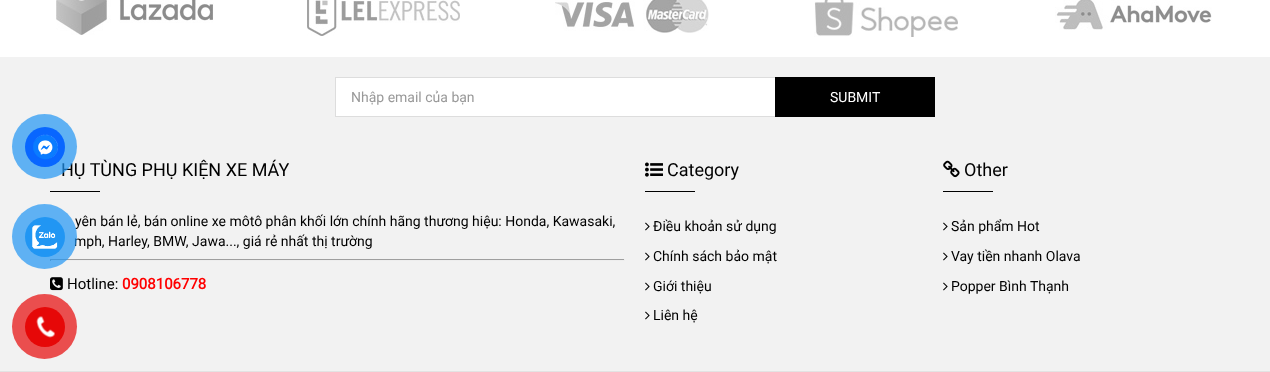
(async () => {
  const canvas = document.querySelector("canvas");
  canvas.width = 1270;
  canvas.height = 372;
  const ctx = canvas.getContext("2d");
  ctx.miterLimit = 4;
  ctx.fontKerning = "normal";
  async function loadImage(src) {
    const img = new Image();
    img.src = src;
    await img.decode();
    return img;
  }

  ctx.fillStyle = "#ffffff";
  ctx.fillRect(0, 0, 1270, 372);
  ctx.drawImage(await loadImage("img/1.png"), 56, 0, 158, 35);
  ctx.drawImage(await loadImage("img/2.png"), 307, 0, 153, 36);
  ctx.drawImage(await loadImage("img/3.png"), 555, 0, 154, 33);
  ctx.drawImage(await loadImage("img/4.png"), 814, 0, 144, 37);
  ctx.drawImage(await loadImage("img/5.png"), 1055, 0, 157, 30);
  ctx.fillStyle = "#f2f2f2";
  ctx.fillRect(0, 57, 1270, 314);
  ctx.fillStyle = "#ea4e4e";
  ctx.beginPath();
  ctx.arc(44.5, 326.5, 32.5, 0, Math.PI * 2);
  ctx.fill();
  ctx.fillStyle = "#e60808";
  ctx.beginPath();
  ctx.arc(45, 327, 20, 0, Math.PI * 2);
  ctx.fill();
  ctx.drawImage(await loadImage("img/8.png"), 36, 316, 19, 22);
  ctx.fillStyle = "#ffffff";
  ctx.fillRect(336, 78, 439, 38);
  ctx.strokeStyle = "#dddddd";
  ctx.strokeRect(335.5, 77.5, 599, 39);
  for (const [x, y, w, h, color] of [
    [775, 77, 160, 40, "#000000"],
    [50, 191, 50, 1, "#000000"],
    [50, 259, 575, 1, "#9f9f9f"],
    [624, 259, 1, 2, "#eeeeee"],
    [50, 260, 575, 1, "#eeeeee"],
    [50, 259, 1, 2, "#9f9f9f"],
  ]) {
    ctx.fillStyle = color;
    ctx.fillRect(x, y, w, h);
  }
  ctx.drawImage(await loadImage("img/9.png"), 50, 277, 13, 14);
  ctx.drawImage(await loadImage("img/10.png"), 645, 162, 18, 15);
  ctx.fillStyle = "#000000";
  ctx.fillRect(645, 191, 50, 1);
  ctx.drawImage(await loadImage("img/11.png"), 645, 222, 5, 9);
  ctx.drawImage(await loadImage("img/11.png"), 645, 252, 5, 9);
  ctx.drawImage(await loadImage("img/11.png"), 645, 282, 5, 9);
  ctx.drawImage(await loadImage("img/11.png"), 645, 311, 5, 9);
  ctx.drawImage(await loadImage("img/12.png"), 943, 160, 17, 18);
  ctx.fillRect(943, 191, 50, 1);
  ctx.drawImage(await loadImage("img/11.png"), 943, 222, 5, 9);
  ctx.drawImage(await loadImage("img/11.png"), 943, 252, 5, 9);
  ctx.drawImage(await loadImage("img/11.png"), 943, 282, 5, 9);
  ctx.fillStyle = "#e3e3e3";
  ctx.fillRect(0, 371, 1270, 1);
  ctx.font = "14px Roboto";
  ctx.fillStyle = "#999999";
  ctx.fillText("Nhập email của bạn", 351, 102);
  ctx.fillStyle = "#ffffff";
  ctx.fillText("SUBMIT", 830, 102);
  ctx.font = "18px Roboto";
  ctx.fillStyle = "#000000";
  ctx.fillText("HỤ TÙNG PHỤ KIỆN XE MÁY", 61, 176);
  ctx.fillStyle = "rgba(33, 150, 243, 0.7)";
  ctx.beginPath();
  ctx.arc(44.5, 146.5, 32.5, 0, Math.PI * 2);
  ctx.fill();
  ctx.fillStyle = "#0866ff";
  ctx.beginPath();
  ctx.arc(45, 147, 20, 0, Math.PI * 2);
  ctx.fill();
  ctx.drawImage(await loadImage("img/6.png"), 33, 134, 25, 26);
  ctx.font = "14px Roboto";
  ctx.fillStyle = "#000000";
  ctx.fillText("yên bán lẻ, bán online xe môtô phân khối lớn chính hãng thương hiệu: Honda, Kawasaki,", 75, 226);
  ctx.fillText("mph, Harley, BMW, Jawa..., giá rẻ nhất thị trường", 74, 246);
  ctx.fillStyle = "rgba(33, 150, 243, 0.7)";
  ctx.beginPath();
  ctx.arc(44.5, 236.5, 32.5, 0, Math.PI * 2);
  ctx.fill();
  ctx.fillStyle = "#2196f3";
  ctx.beginPath();
  ctx.arc(45, 237, 20, 0, Math.PI * 2);
  ctx.fill();
  ctx.drawImage(await loadImage("img/7.png"), 32, 225, 26, 24);
  ctx.font = "15px Roboto";
  ctx.fillStyle = "#000000";
  ctx.fillText("Hotline:", 67, 289);
  ctx.font = "bold 15px Roboto";
  ctx.fillStyle = "#ff0000";
  ctx.fillText("0908106778", 122, 289);
  ctx.font = "18px Roboto";
  ctx.fillStyle = "#000000";
  ctx.fillText("Category", 667, 176);
  ctx.font = "14px Roboto";
  for (const [text, x, y] of [
    ["Điều khoản sử dụng", 653, 231],
    ["Chính sách bảo mật", 653, 261],
    ["Giới thiệu", 653, 291],
    ["Liên hệ", 653, 320],
  ]) {
    ctx.fillText(text, x, y);
  }
  ctx.font = "18px Roboto";
  ctx.fillText("Other", 964, 176);
  ctx.font = "14px Roboto";
  for (const [text, x, y] of [
    ["Sản phẩm Hot", 951, 231],
    ["Vay tiền nhanh Olava", 951, 261],
    ["Popper Bình Thạnh", 951, 291],
  ]) {
    ctx.fillText(text, x, y);
  }
})();
